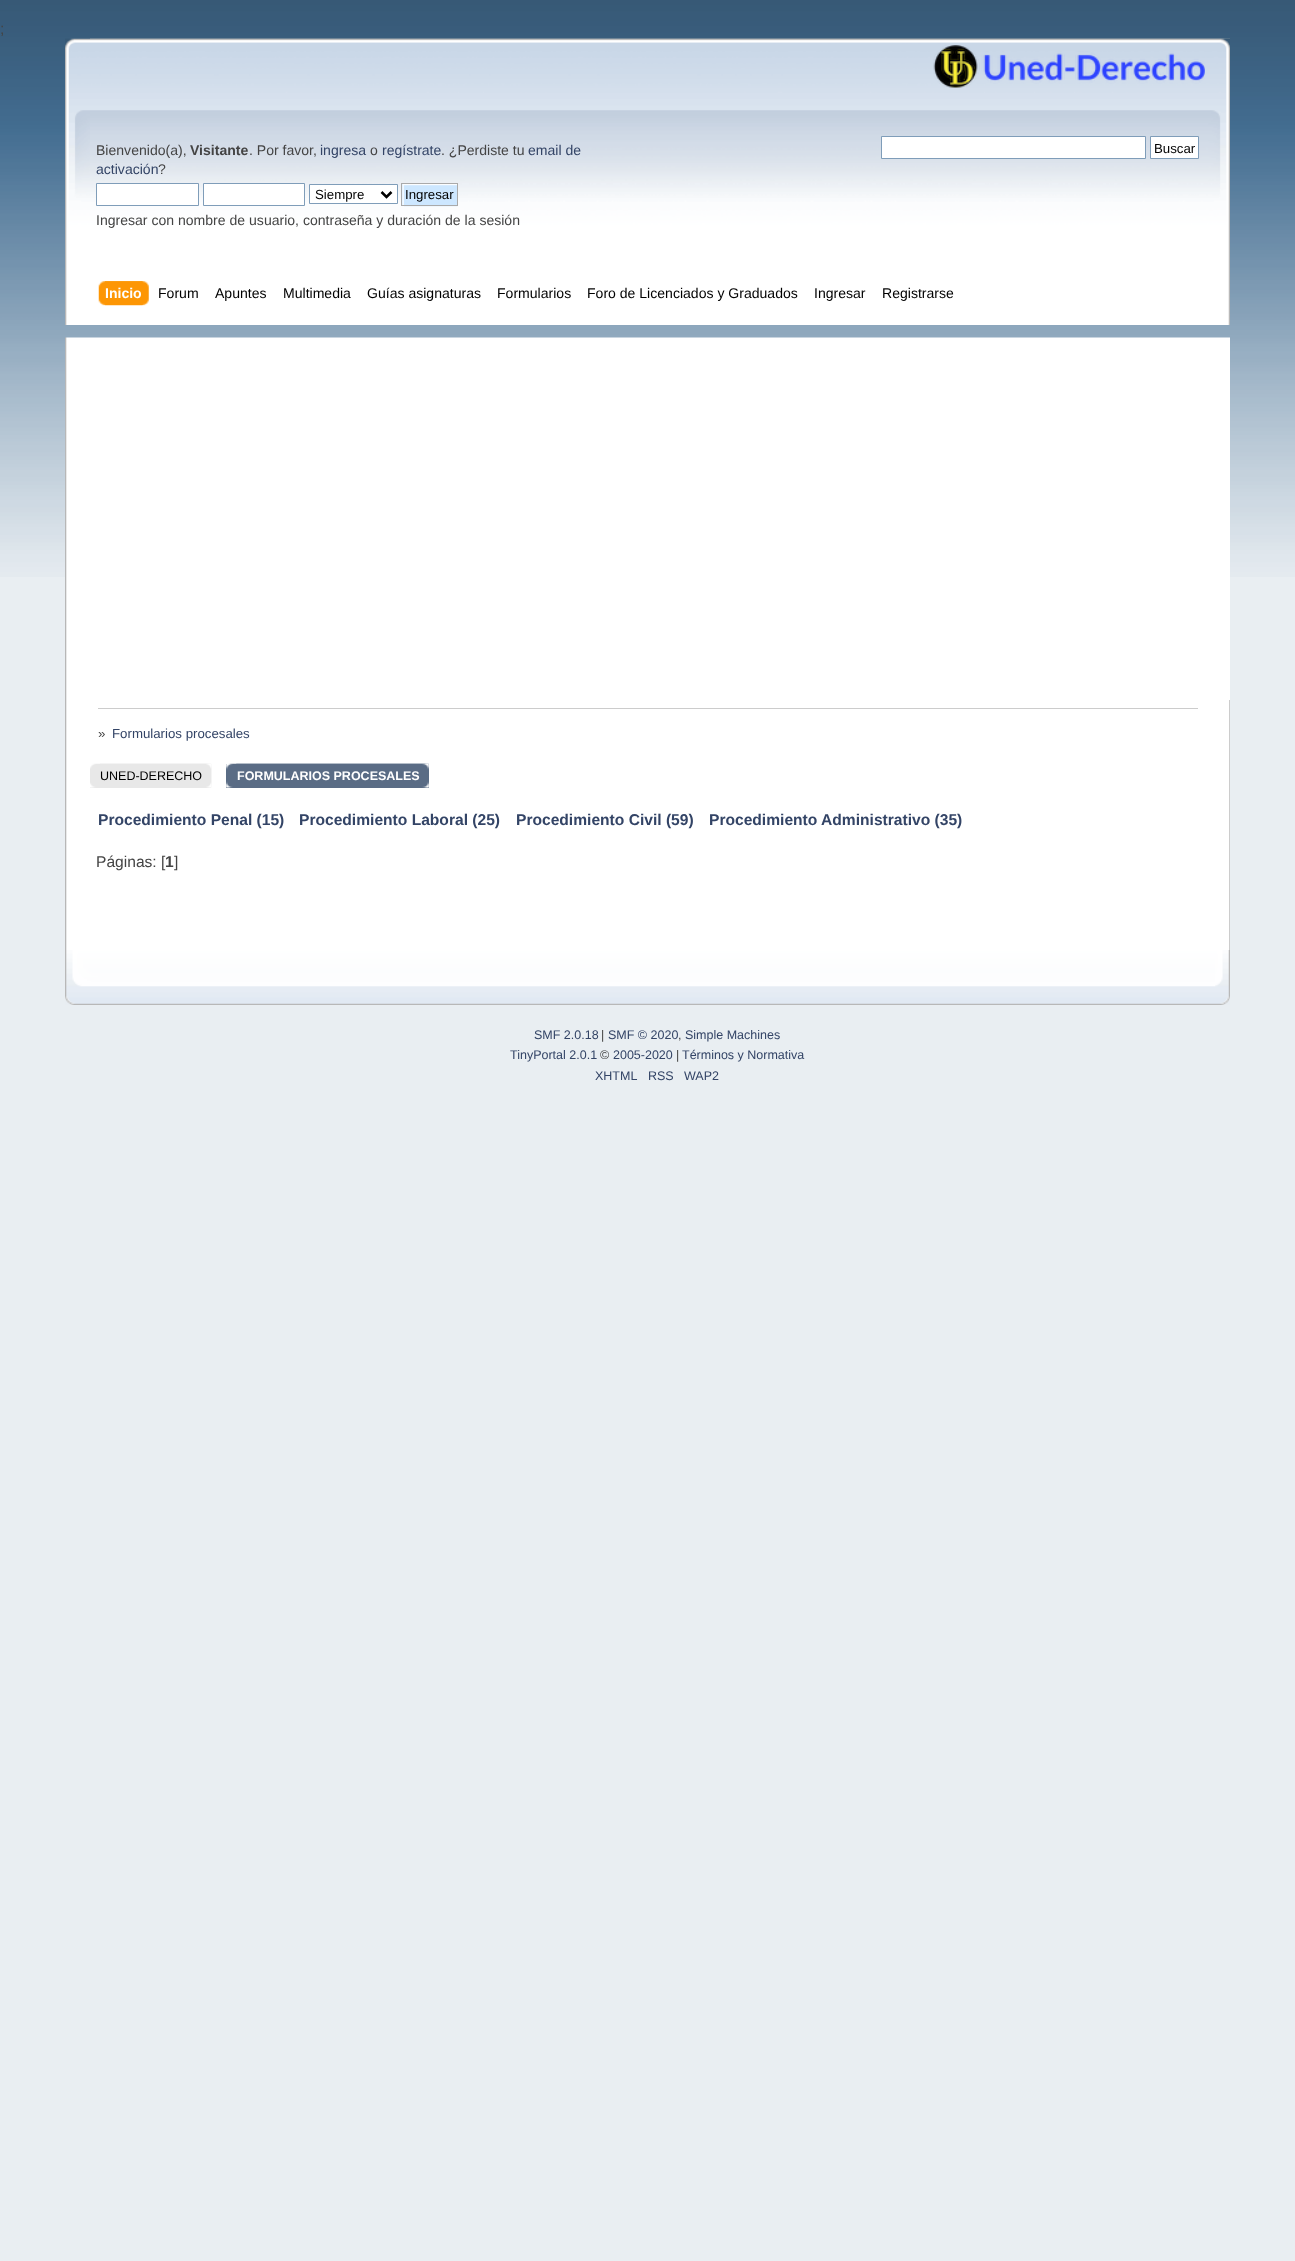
(async () => {
  const canvas = document.querySelector("canvas");
  canvas.width = 1295;
  canvas.height = 2261;
  const ctx = canvas.getContext("2d");
  ctx.miterLimit = 4;
  ctx.fontKerning = "normal";
  async function loadImage(src) {
    const img = new Image();
    img.src = src;
    await img.decode();
    return img;
  }
  let path;

  ctx.fillStyle = "#e9eef2";
  ctx.fillRect(0, 0, 1295, 2261);
  ctx.drawImage(await loadImage("img/1.png"), 0, 0, 1295, 577);
  ctx.drawImage(await loadImage("img/2.png"), 65, 38, 1165, 287);
  ctx.drawImage(await loadImage("img/3.png"), 90, 38, 1140, 287);
  ctx.drawImage(await loadImage("img/4.png"), 933, 45, 272, 43);
  ctx.fillStyle = "#ffffff";
  ctx.beginPath();
  ctx.rect(96.5, 183.5, 102, 22);
  ctx.fill();
  ctx.strokeStyle = "#7f9db9";
  ctx.stroke();
  ctx.beginPath();
  ctx.rect(203.5, 183.5, 101, 22);
  ctx.fill();
  ctx.stroke();
  ctx.beginPath();
  ctx.rect(309.5, 184.5, 88, 19);
  ctx.fill();
  ctx.stroke();
  path = new Path2D("M381.5 192L386.5 197L391.5 192");
  ctx.strokeStyle = "#000000";
  ctx.lineWidth = 2.5;
  ctx.stroke(path);
  ctx.fillStyle = "#cde7ff";
  ctx.fillRect(402, 184, 1, 21);
  ctx.drawImage(await loadImage("img/5.png"), 402, 184, 56, 23);
  ctx.strokeStyle = "#aaaaaa";
  ctx.lineWidth = 1;
  ctx.strokeRect(401.5, 183.5, 56, 22);
  ctx.fillStyle = "#ffffff";
  ctx.beginPath();
  ctx.rect(881.5, 136.5, 264, 22);
  ctx.fill();
  ctx.strokeStyle = "#7f9db9";
  ctx.stroke();
  ctx.beginPath();
  ctx.rect(1150.5, 136.5, 48, 22);
  ctx.fill();
  ctx.stroke();
  ctx.drawImage(await loadImage("img/6.png"), 105, 281, 44, 25);
  ctx.drawImage(await loadImage("img/7.png"), 98, 281, 45, 25);
  ctx.drawImage(await loadImage("img/8.png"), 65, 337, 1165, 613);
  for (const [x, y, w, h, color] of [
    [1229, 700, 1, 250, "#cccccc"],
    [98, 708, 1100, 1, "#cccccc"],
    [90, 787, 121, 1, "#e8e8e8"],
  ]) {
    ctx.fillStyle = color;
    ctx.fillRect(x, y, w, h);
  }
  ctx.drawImage(await loadImage("img/9.png"), 90, 763, 122, 25);
  ctx.drawImage(await loadImage("img/10.png"), 100, 763, 112, 25);
  ctx.fillStyle = "#5a6c85";
  ctx.fillRect(226, 764, 203, 24);
  ctx.drawImage(await loadImage("img/11.png"), 226, 763, 203, 25);
  ctx.drawImage(await loadImage("img/12.png"), 236, 763, 193, 25);
  ctx.drawImage(await loadImage("img/13.png"), 65, 950, 1150, 55);
  ctx.drawImage(await loadImage("img/14.png"), 1215, 950, 15, 55);
  ctx.font = "15.6px Liberation Sans";
  ctx.fillStyle = "#444444";
  ctx.fillText(";", 0, 34);
  ctx.font = "14.05px Liberation Sans";
  ctx.fillText("Bienvenido(a),", 96, 155);
  ctx.font = "bold 14.05px Liberation Sans";
  ctx.fillText("Visitante", 190, 155);
  ctx.font = "14.05px Liberation Sans";
  ctx.fillText(". Por favor,", 249, 155);
  ctx.fillStyle = "#334466";
  ctx.fillText("ingresa", 320, 155);
  ctx.fillStyle = "#444444";
  ctx.fillText("o", 370, 155);
  ctx.fillStyle = "#334466";
  ctx.fillText("regístrate", 382, 155);
  ctx.fillStyle = "#444444";
  ctx.fillText(". ¿Perdiste tu", 441, 155);
  ctx.fillStyle = "#334466";
  ctx.fillText("email de", 528, 155);
  ctx.fillText("activación", 96, 174);
  ctx.fillStyle = "#444444";
  ctx.fillText("?", 158, 174);
  ctx.font = "13.25px Liberation Sans";
  ctx.fillStyle = "#000000";
  ctx.fillText("Siempre", 315, 199);
  ctx.fillText("Ingresar", 405, 199);
  ctx.font = "14.05px Liberation Sans";
  ctx.fillStyle = "#444444";
  ctx.fillText("Ingresar con nombre de usuario, contraseña y duración de la sesión", 96, 225);
  ctx.font = "13.25px Liberation Sans";
  ctx.fillStyle = "#000000";
  ctx.fillText("Buscar", 1154, 153);
  ctx.font = "bold 14.05px Liberation Sans";
  ctx.fillStyle = "#ffffff";
  ctx.fillText("Inicio", 105, 298);
  ctx.font = "14.05px Liberation Sans";
  ctx.fillStyle = "#000000";
  for (const [text, x, y] of [
    ["Forum", 158, 298],
    ["Apuntes", 215, 298],
    ["Multimedia", 283, 298],
    ["Guías asignaturas", 367, 298],
    ["Formularios", 497, 298],
    ["Foro de Licenciados y Graduados", 587, 298],
    ["Ingresar", 814, 298],
    ["Registrarse", 882, 298],
  ]) {
    ctx.fillText(text, x, y);
  }
  ctx.font = "13.25px Liberation Sans";
  ctx.fillStyle = "#444444";
  ctx.fillText("»", 98, 738);
  ctx.fillStyle = "#334466";
  ctx.fillText("Formularios procesales", 112, 738);
  ctx.font = "12.5px Liberation Sans";
  ctx.fillStyle = "#000000";
  ctx.fillText("UNED-DERECHO", 100, 780);
  ctx.font = "bold 12.5px Liberation Sans";
  ctx.fillStyle = "#ffffff";
  ctx.fillText("FORMULARIOS PROCESALES", 237, 780);
  ctx.font = "bold 15.6px Liberation Sans";
  ctx.fillStyle = "#334466";
  for (const [text, x, y] of [
    ["Procedimiento Penal (15)", 98, 825],
    ["Procedimiento Laboral (25)", 299, 825],
    ["Procedimiento Civil (59)", 516, 825],
    ["Procedimiento Administrativo (35)", 709, 825],
  ]) {
    ctx.fillText(text, x, y);
  }
  ctx.font = "15.6px Liberation Sans";
  ctx.fillStyle = "#444444";
  ctx.fillText("Páginas: [", 96, 867);
  ctx.font = "bold 15.6px Liberation Sans";
  ctx.fillText("1", 165, 867);
  ctx.font = "15.6px Liberation Sans";
  ctx.fillText("]", 174, 867);
  ctx.font = "12.5px Liberation Sans";
  ctx.fillStyle = "#334466";
  ctx.fillText("SMF 2.0.18", 534, 1039);
  ctx.fillStyle = "#444444";
  ctx.fillText("|", 601, 1039);
  ctx.fillStyle = "#334466";
  ctx.fillText("SMF © 2020", 608, 1039);
  ctx.fillStyle = "#444444";
  ctx.fillText(",", 678, 1039);
  ctx.fillStyle = "#334466";
  ctx.fillText("Simple Machines", 685, 1039);
  ctx.fillText("TinyPortal 2.0.1", 510, 1059);
  ctx.fillStyle = "#444444";
  ctx.fillText("©", 600, 1059);
  ctx.fillStyle = "#334466";
  ctx.fillText("2005-2020", 613, 1059);
  ctx.fillStyle = "#444444";
  ctx.fillText("|", 676, 1059);
  ctx.fillStyle = "#334466";
  for (const [text, x, y] of [
    ["Términos y Normativa", 682, 1059],
    ["XHTML", 595, 1080],
    ["RSS", 648, 1080],
    ["WAP2", 684, 1080],
  ]) {
    ctx.fillText(text, x, y);
  }
})();
